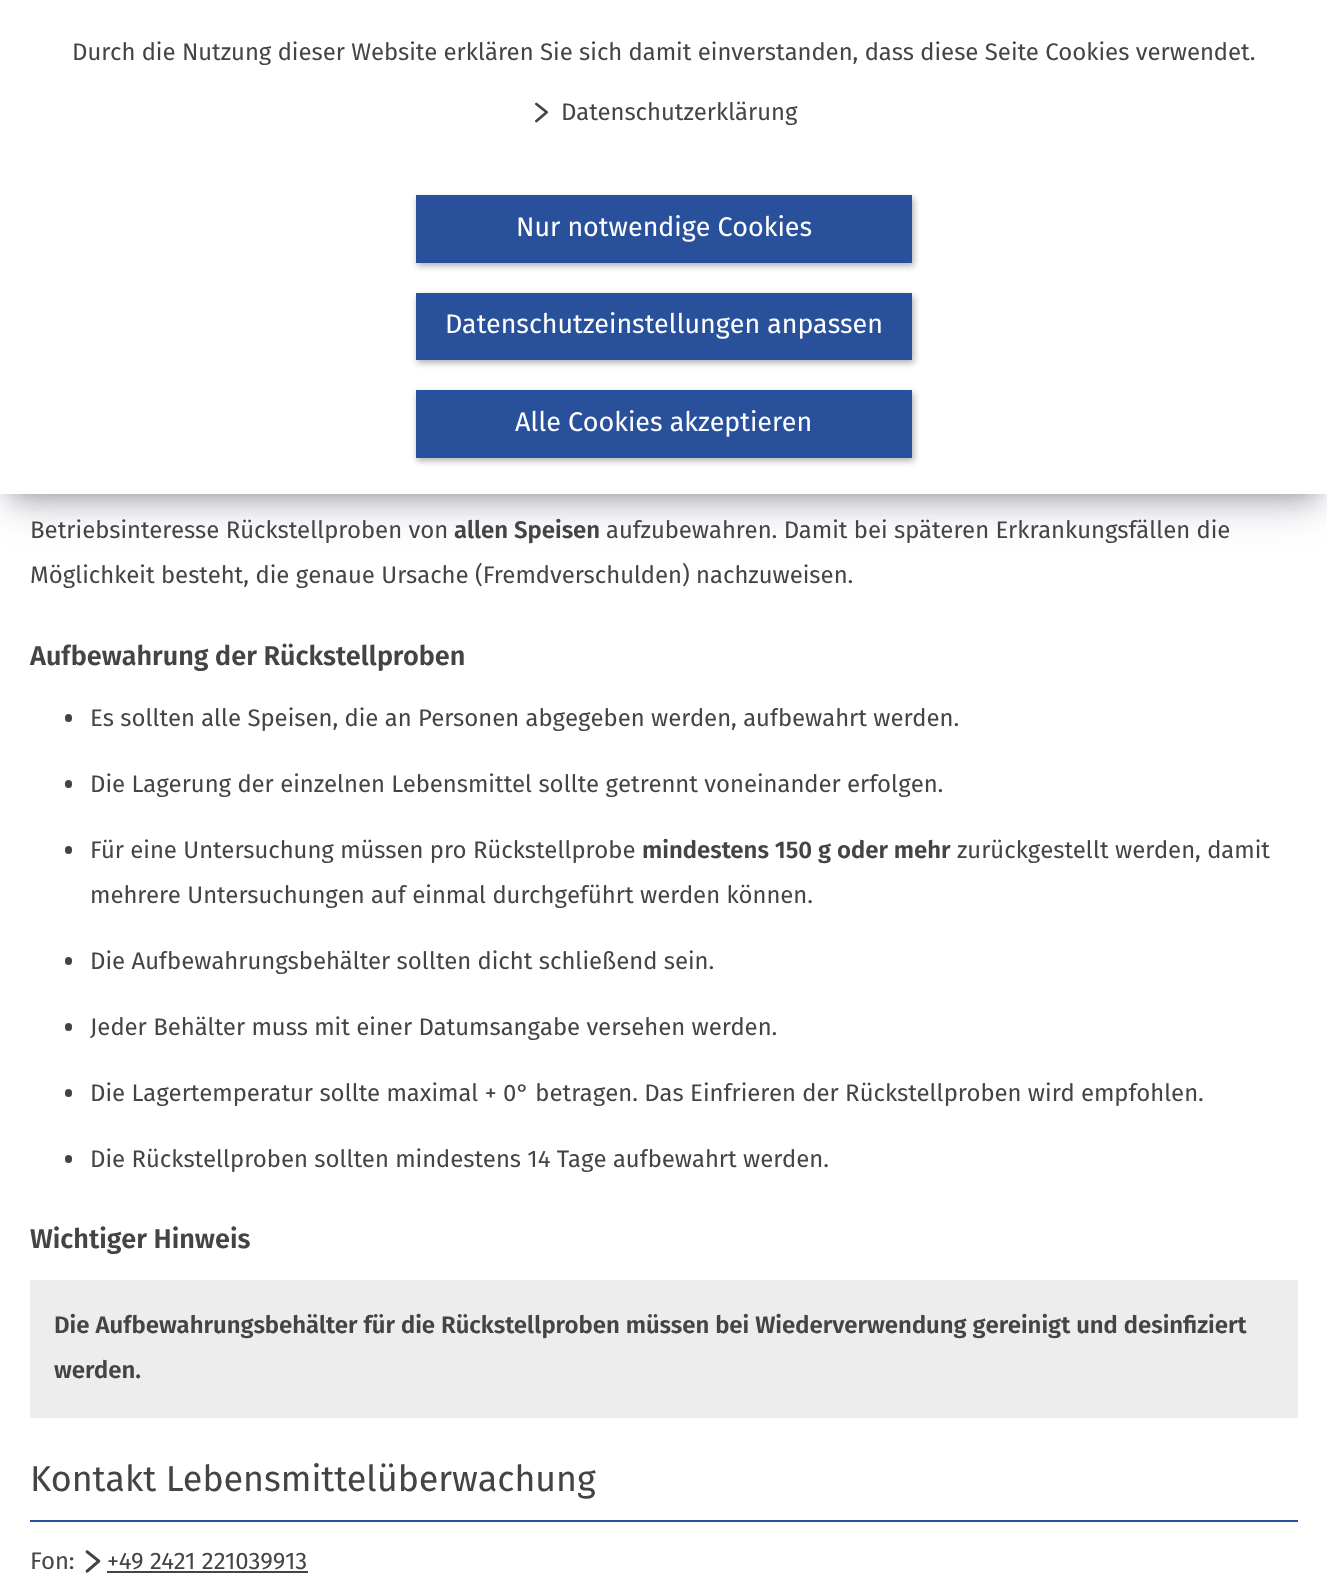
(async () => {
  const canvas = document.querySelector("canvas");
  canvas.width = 1327;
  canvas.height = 1596;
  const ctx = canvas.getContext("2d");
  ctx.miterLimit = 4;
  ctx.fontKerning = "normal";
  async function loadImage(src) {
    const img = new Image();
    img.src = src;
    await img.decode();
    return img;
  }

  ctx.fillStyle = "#ffffff";
  ctx.fillRect(0, 0, 1327, 1596);
  ctx.fillStyle = "rgba(0, 0, 0, 0.3)";
  ctx.filter = "blur(12px)";
  ctx.beginPath();
  ctx.rect(12, 24, 1304, 470);
  ctx.fill();
  ctx.filter = "none";
  ctx.fillStyle = "rgba(50, 50, 93, 0.25)";
  ctx.filter = "blur(20px)";
  ctx.beginPath();
  ctx.rect(8, 27, 1312, 479);
  ctx.fill();
  ctx.filter = "none";
  ctx.fillStyle = "#ffffff";
  ctx.fillRect(0, 0, 1327, 494);
  ctx.drawImage(await loadImage("img/1.png"), 535, 102, 13, 21);
  ctx.fillStyle = "rgba(0, 0, 0, 0.3)";
  ctx.filter = "blur(3px)";
  ctx.beginPath();
  ctx.rect(417, 198, 497, 68);
  ctx.fill();
  ctx.filter = "none";
  ctx.fillStyle = "#28509b";
  ctx.fillRect(416, 195, 496, 68);
  ctx.fillStyle = "rgba(0, 0, 0, 0.3)";
  ctx.filter = "blur(3px)";
  ctx.beginPath();
  ctx.rect(417, 296, 497, 67);
  ctx.fill();
  ctx.filter = "none";
  ctx.fillStyle = "#28509b";
  ctx.fillRect(416, 293, 496, 67);
  ctx.fillStyle = "rgba(0, 0, 0, 0.3)";
  ctx.filter = "blur(3px)";
  ctx.beginPath();
  ctx.rect(417, 393, 497, 68);
  ctx.fill();
  ctx.filter = "none";
  ctx.fillStyle = "#28509b";
  ctx.fillRect(416, 390, 496, 68);
  ctx.fillStyle = "#444444";
  ctx.beginPath();
  ctx.roundRect(65, 714, 7, 8, 3.5);
  ctx.fill();
  ctx.beginPath();
  ctx.roundRect(65, 780, 7, 8, 3.5);
  ctx.fill();
  ctx.beginPath();
  ctx.roundRect(65, 846, 7, 8, 3.5);
  ctx.fill();
  ctx.beginPath();
  ctx.roundRect(65, 957, 7, 8, 3.5);
  ctx.fill();
  ctx.beginPath();
  ctx.roundRect(65, 1023, 7, 8, 3.5);
  ctx.fill();
  ctx.beginPath();
  ctx.roundRect(65, 1089, 7, 8, 3.5);
  ctx.fill();
  ctx.beginPath();
  ctx.roundRect(65, 1155, 7, 8, 3.5);
  ctx.fill();
  ctx.fillStyle = "#ededed";
  ctx.fillRect(30, 1280, 1268, 138);
  ctx.fillStyle = "#28509b";
  ctx.fillRect(30, 1520, 1268, 2);
  ctx.drawImage(await loadImage("img/2.png"), 85, 1550, 16, 23);
  ctx.fillStyle = "#444444";
  ctx.fillRect(107, 1571, 201, 2);
  ctx.font = "24px Fira Sans";
  ctx.fillText("Durch die Nutzung dieser Website erklären Sie sich damit einverstanden, dass diese Seite Cookies verwendet.", 72, 60);
  ctx.fillText("Datenschutzerklärung", 561, 120);
  ctx.font = "27px Fira Sans";
  ctx.fillStyle = "#ffffff";
  for (const [text, x, y] of [
    ["Nur notwendige Cookies", 516, 236],
    ["Datenschutzeinstellungen anpassen", 445, 333],
    ["Alle Cookies akzeptieren", 515, 431],
  ]) {
    ctx.fillText(text, x, y);
  }
  ctx.font = "24px Fira Sans";
  ctx.fillStyle = "#444444";
  ctx.fillText("Betriebsinteresse Rückstellproben von", 30, 538);
  ctx.font = "600 24px Fira Sans";
  ctx.fillText("allen Speisen", 454, 538);
  ctx.font = "24px Fira Sans";
  ctx.fillText("aufzubewahren. Damit bei späteren Erkrankungsfällen die", 606, 538);
  ctx.fillText("Möglichkeit besteht, die genaue Ursache (Fremdverschulden) nachzuweisen.", 30, 583);
  ctx.font = "600 27.1px Fira Sans";
  ctx.fillText("Aufbewahrung der Rückstellproben", 30, 665);
  ctx.font = "24px Fira Sans";
  for (const [text, x, y] of [
    ["Es sollten alle Speisen, die an Personen abgegeben werden, aufbewahrt werden.", 90, 726],
    ["Die Lagerung der einzelnen Lebensmittel sollte getrennt voneinander erfolgen.", 90, 792],
    ["Für eine Untersuchung müssen pro Rückstellprobe", 90, 858],
  ]) {
    ctx.fillText(text, x, y);
  }
  ctx.font = "600 24px Fira Sans";
  ctx.fillText("mindestens 150 g oder mehr", 642, 858);
  ctx.font = "24px Fira Sans";
  for (const [text, x, y] of [
    ["zurückgestellt werden, damit", 957, 858],
    ["mehrere Untersuchungen auf einmal durchgeführt werden können.", 90, 903],
    ["Die Aufbewahrungsbehälter sollten dicht schließend sein.", 90, 969],
    ["Jeder Behälter muss mit einer Datumsangabe versehen werden.", 90, 1035],
    ["Die Lagertemperatur sollte maximal + 0° betragen. Das Einfrieren der Rückstellproben wird empfohlen.", 90, 1101],
    ["Die Rückstellproben sollten mindestens 14 Tage aufbewahrt werden.", 90, 1167],
  ]) {
    ctx.fillText(text, x, y);
  }
  ctx.font = "600 27.1px Fira Sans";
  ctx.fillText("Wichtiger Hinweis", 30, 1248);
  ctx.font = "600 24px Fira Sans";
  ctx.fillText("Die Aufbewahrungsbehälter für die Rückstellproben müssen bei Wiederverwendung gereinigt und desinfiziert", 54, 1333);
  ctx.fillText("werden.", 54, 1378);
  ctx.font = "36px Fira Sans";
  ctx.fillText("Kontakt Lebensmittelüberwachung", 30, 1491);
  ctx.font = "24px Fira Sans";
  ctx.fillText("Fon:", 30, 1569);
  ctx.fillText("+49 2421 221039913", 107, 1569);
})();
